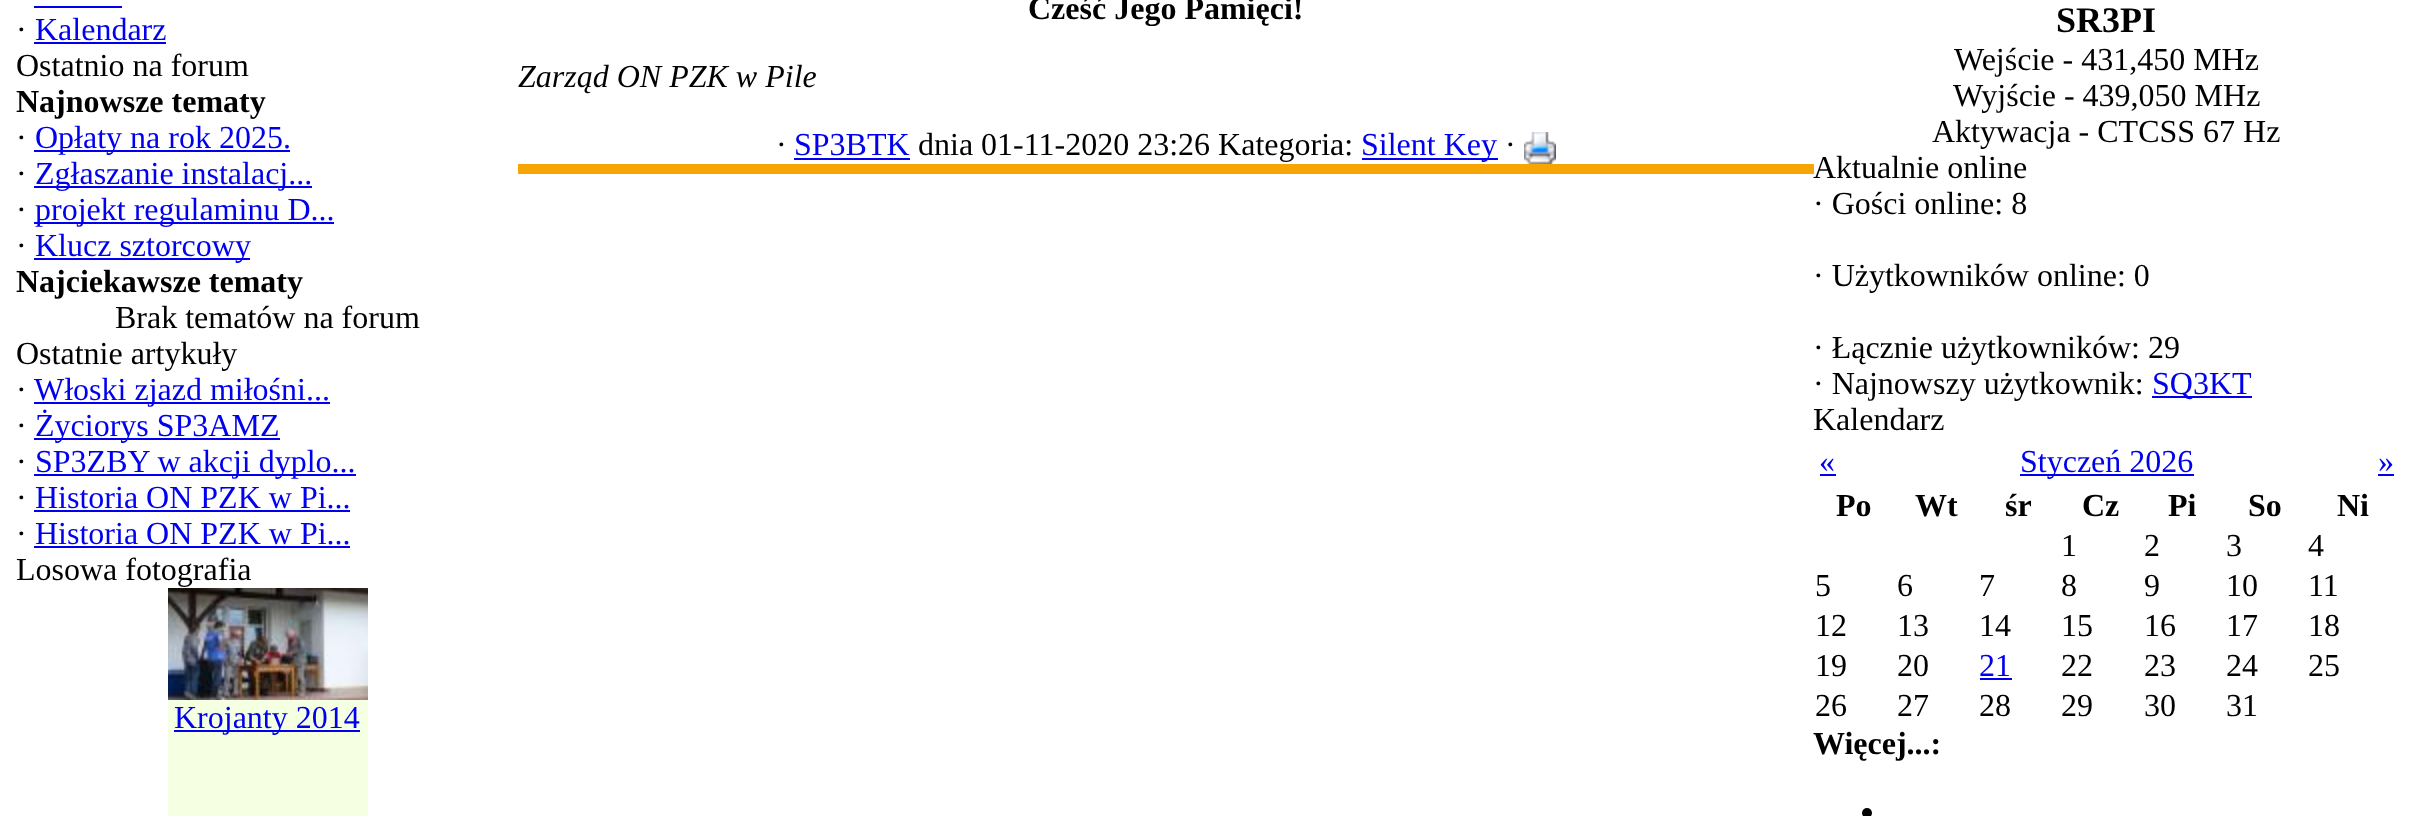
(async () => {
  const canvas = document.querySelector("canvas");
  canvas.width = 2416;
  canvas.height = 816;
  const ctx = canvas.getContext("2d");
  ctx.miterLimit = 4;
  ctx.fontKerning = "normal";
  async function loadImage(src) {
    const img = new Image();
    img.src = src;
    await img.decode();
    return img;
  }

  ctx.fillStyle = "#ffffff";
  ctx.fillRect(0, 0, 2416, 816);
  for (const [x, y, w, h, color] of [
    [34, 6, 88, 2, "#0000ee"],
    [34, 42, 132, 2, "#0000ee"],
    [34, 150, 256, 2, "#0000ee"],
    [34, 186, 278, 2, "#0000ee"],
    [34, 222, 300, 2, "#0000ee"],
    [34, 258, 216, 2, "#0000ee"],
    [34, 402, 296, 2, "#0000ee"],
    [34, 438, 246, 2, "#0000ee"],
    [34, 474, 322, 2, "#0000ee"],
    [34, 510, 316, 2, "#0000ee"],
    [34, 546, 316, 2, "#0000ee"],
    [168, 700, 200, 116, "#f5ffe2"],
  ]) {
    ctx.fillStyle = color;
    ctx.fillRect(x, y, w, h);
  }
  ctx.drawImage(await loadImage("img/1.png"), 168, 588, 200, 112);
  for (const [x, y, w, h, color] of [
    [174, 730, 186, 2, "#0000ee"],
    [794, 158, 116, 2, "#0000ee"],
    [1362, 158, 136, 2, "#0000ee"],
  ]) {
    ctx.fillStyle = color;
    ctx.fillRect(x, y, w, h);
  }
  ctx.drawImage(await loadImage("img/2.png"), 1524, 132, 32, 32);
  for (const [x, y, w, h, color] of [
    [518, 164, 1296, 10, "#f6a504"],
    [2152, 396, 100, 2, "#0000ee"],
    [1820, 474, 16, 2, "#0000ee"],
    [2020, 474, 174, 2, "#0000ee"],
    [2378, 474, 16, 2, "#0000ee"],
    [1980, 678, 32, 2, "#0000ee"],
  ]) {
    ctx.fillStyle = color;
    ctx.fillRect(x, y, w, h);
  }
  ctx.fillStyle = "#000000";
  ctx.beginPath();
  ctx.arc(1867, 813, 5, 0, Math.PI * 2);
  ctx.fill();
  ctx.font = "32px Liberation Serif";
  ctx.fillText("·", 16, 40);
  ctx.fillStyle = "#0000ee";
  ctx.fillText("Kalendarz", 35, 40);
  ctx.fillStyle = "#000000";
  ctx.fillText("Ostatnio na forum", 16, 76);
  ctx.font = "bold 32px Liberation Serif";
  ctx.fillText("Najnowsze tematy", 16, 112);
  ctx.font = "32px Liberation Serif";
  ctx.fillText("·", 16, 148);
  ctx.fillStyle = "#0000ee";
  ctx.fillText("Opłaty na rok 2025.", 35, 148);
  ctx.fillStyle = "#000000";
  ctx.fillText("·", 16, 184);
  ctx.fillStyle = "#0000ee";
  ctx.fillText("Zgłaszanie instalacj...", 35, 184);
  ctx.fillStyle = "#000000";
  ctx.fillText("·", 16, 220);
  ctx.fillStyle = "#0000ee";
  ctx.fillText("projekt regulaminu D...", 35, 220);
  ctx.fillStyle = "#000000";
  ctx.fillText("·", 16, 256);
  ctx.fillStyle = "#0000ee";
  ctx.fillText("Klucz sztorcowy", 35, 256);
  ctx.font = "bold 32px Liberation Serif";
  ctx.fillStyle = "#000000";
  ctx.fillText("Najciekawsze tematy", 16, 292);
  ctx.font = "32px Liberation Serif";
  for (const [text, x, y] of [
    ["Brak tematów na forum", 115, 328],
    ["Ostatnie artykuły", 16, 364],
    ["·", 16, 400],
  ]) {
    ctx.fillText(text, x, y);
  }
  ctx.fillStyle = "#0000ee";
  ctx.fillText("Włoski zjazd miłośni...", 34, 400);
  ctx.fillStyle = "#000000";
  ctx.fillText("·", 16, 436);
  ctx.fillStyle = "#0000ee";
  ctx.fillText("Życiorys SP3AMZ", 35, 436);
  ctx.fillStyle = "#000000";
  ctx.fillText("·", 16, 472);
  ctx.fillStyle = "#0000ee";
  ctx.fillText("SP3ZBY w akcji dyplo...", 35, 472);
  ctx.fillStyle = "#000000";
  ctx.fillText("·", 16, 508);
  ctx.fillStyle = "#0000ee";
  ctx.fillText("Historia ON PZK w Pi...", 35, 508);
  ctx.fillStyle = "#000000";
  ctx.fillText("·", 16, 544);
  ctx.fillStyle = "#0000ee";
  ctx.fillText("Historia ON PZK w Pi...", 35, 544);
  ctx.fillStyle = "#000000";
  ctx.fillText("Losowa fotografia", 16, 580);
  ctx.fillStyle = "#0000ee";
  ctx.fillText("Krojanty 2014", 174, 728);
  ctx.font = "bold 32px Liberation Serif";
  ctx.fillStyle = "#000000";
  ctx.fillText("Cześć Jego Pamięci!", 1028, 19);
  ctx.font = "italic 32px Liberation Serif";
  ctx.fillText("Zarząd ON PZK w Pile", 518, 87);
  ctx.font = "32px Liberation Serif";
  ctx.fillText("·", 776, 155);
  ctx.fillStyle = "#0000ee";
  ctx.fillText("SP3BTK", 794, 155);
  ctx.fillStyle = "#000000";
  ctx.fillText("dnia 01-11-2020 23:26 Kategoria:", 918, 155);
  ctx.fillStyle = "#0000ee";
  ctx.fillText("Silent Key", 1361, 155);
  ctx.fillStyle = "#000000";
  ctx.fillText("·", 1505, 155);
  ctx.font = "bold 36px Liberation Serif";
  ctx.fillText("SR3PI", 2056, 32);
  ctx.font = "32px Liberation Serif";
  for (const [text, x, y] of [
    ["Wejście - 431,450 MHz", 1954, 70],
    ["Wyjście - 439,050 MHz", 1953, 106],
    ["Aktywacja - CTCSS 67 Hz", 1932, 142],
    ["Aktualnie online", 1813, 178],
    ["· Gości online: 8", 1813, 214],
    ["· Użytkowników online: 0", 1813, 286],
    ["· Łącznie użytkowników: 29", 1813, 358],
    ["· Najnowszy użytkownik:", 1813, 394],
  ]) {
    ctx.fillText(text, x, y);
  }
  ctx.fillStyle = "#0000ee";
  ctx.fillText("SQ3KT", 2152, 394);
  ctx.fillStyle = "#000000";
  ctx.fillText("Kalendarz", 1813, 430);
  ctx.fillStyle = "#0000ee";
  for (const [text, x, y] of [
    ["«", 1819, 472],
    ["Styczeń 2026", 2020, 472],
    ["»", 2378, 472],
  ]) {
    ctx.fillText(text, x, y);
  }
  ctx.font = "bold 32px Liberation Serif";
  ctx.fillStyle = "#000000";
  for (const [text, x, y] of [
    ["Po", 1836, 516],
    ["Wt", 1915, 516],
    ["śr", 2005, 516],
    ["Cz", 2082, 516],
    ["Pi", 2168, 516],
    ["So", 2248, 516],
    ["Ni", 2337, 516],
  ]) {
    ctx.fillText(text, x, y);
  }
  ctx.font = "32px Liberation Serif";
  for (const [text, x, y] of [
    ["1", 2061, 556],
    ["2", 2144, 556],
    ["3", 2226, 556],
    ["4", 2308, 556],
    ["5", 1815, 596],
    ["6", 1897, 596],
    ["7", 1979, 596],
    ["8", 2061, 596],
    ["9", 2144, 596],
    ["10", 2226, 596],
    ["11", 2308, 596],
    ["12", 1815, 636],
    ["13", 1897, 636],
    ["14", 1979, 636],
    ["15", 2061, 636],
    ["16", 2144, 636],
    ["17", 2226, 636],
    ["18", 2308, 636],
    ["19", 1815, 676],
    ["20", 1897, 676],
  ]) {
    ctx.fillText(text, x, y);
  }
  ctx.fillStyle = "#0000ee";
  ctx.fillText("21", 1979, 676);
  ctx.fillStyle = "#000000";
  for (const [text, x, y] of [
    ["22", 2061, 676],
    ["23", 2144, 676],
    ["24", 2226, 676],
    ["25", 2308, 676],
    ["26", 1815, 716],
    ["27", 1897, 716],
    ["28", 1979, 716],
    ["29", 2061, 716],
    ["30", 2144, 716],
    ["31", 2226, 716],
  ]) {
    ctx.fillText(text, x, y);
  }
  ctx.font = "bold 32px Liberation Serif";
  ctx.fillText("Więcej...:", 1813, 754);
})();
